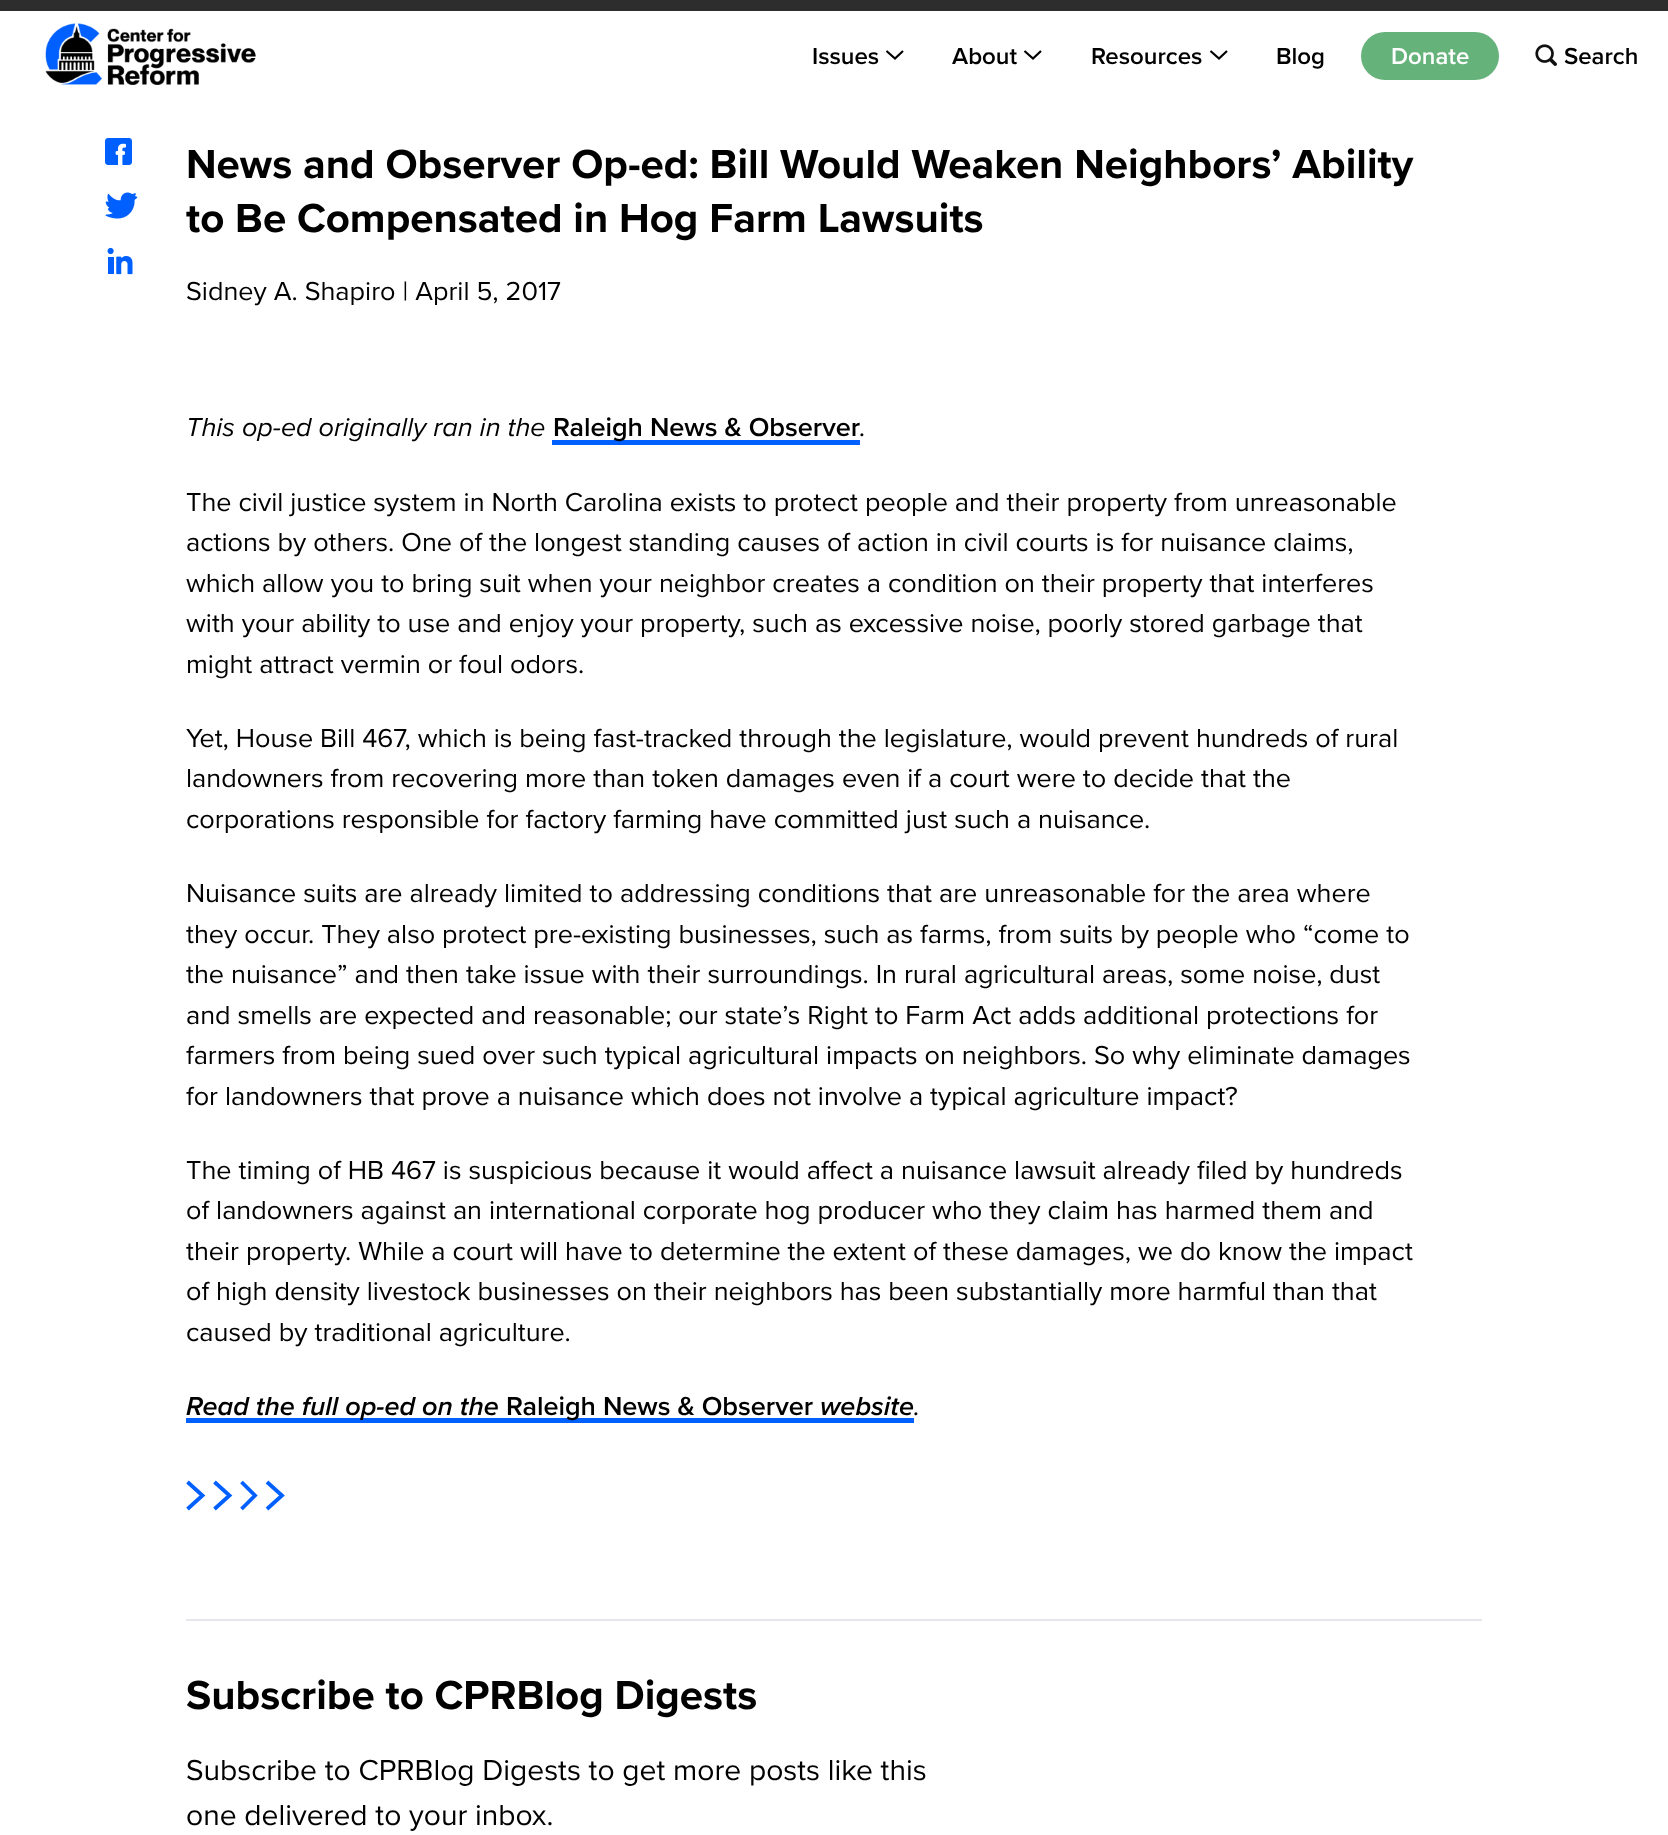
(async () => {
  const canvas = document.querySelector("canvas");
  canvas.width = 1668;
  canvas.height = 1835;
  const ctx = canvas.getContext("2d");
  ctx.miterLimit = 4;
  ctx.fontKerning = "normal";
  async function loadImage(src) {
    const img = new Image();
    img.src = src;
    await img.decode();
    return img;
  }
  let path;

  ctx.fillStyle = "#ffffff";
  ctx.fillRect(0, 0, 1668, 1835);
  ctx.fillStyle = "#2d2d2d";
  ctx.fillRect(0, 0, 1668, 11);
  ctx.drawImage(await loadImage("img/1.png"), 45, 23, 211, 62);
  path = new Path2D("M886.5 51L895 58.5L903 51");
  ctx.strokeStyle = "#000000";
  ctx.lineWidth = 2.2;
  ctx.stroke(path);
  path = new Path2D("M1024.5 51L1033 58.5L1041 51");
  ctx.stroke(path);
  path = new Path2D("M1210.5 51L1219 58.5L1227 51");
  ctx.stroke(path);
  ctx.fillStyle = "#66b27b";
  ctx.beginPath();
  ctx.roundRect(1361, 32, 138, 48, 24);
  ctx.fill();
  ctx.drawImage(await loadImage("img/2.png"), 1535, 44, 22, 22);
  ctx.drawImage(await loadImage("img/3.png"), 105, 138, 27, 27);
  ctx.drawImage(await loadImage("img/4.png"), 105, 192, 33, 27);
  ctx.drawImage(await loadImage("img/5.png"), 107, 247, 26, 28);
  ctx.fillStyle = "#0060ff";
  ctx.fillRect(552, 440, 308, 5);
  ctx.fillRect(186, 1418, 728, 5);
  path = new Path2D("M187.5 1482L202.5 1495.5L187.5 1509M214.5 1482L229.5 1495.5L214.5 1509");
  ctx.strokeStyle = "#0060ff";
  ctx.lineWidth = 3.8;
  ctx.stroke(path);
  path = new Path2D("M241.5 1482L255 1495.5L241.5 1509M267 1482L282 1495.5L267 1509");
  ctx.stroke(path);
  ctx.fillStyle = "#e5e7eb";
  ctx.fillRect(186, 1619, 1296, 2);
  ctx.font = "600 24px Proxima Nova";
  ctx.fillStyle = "#000000";
  for (const [text, x, y] of [
    ["Issues", 812, 64],
    ["About", 952, 64],
    ["Resources", 1091, 64],
    ["Blog", 1276, 64],
  ]) {
    ctx.fillText(text, x, y);
  }
  ctx.fillStyle = "#ffffff";
  ctx.fillText("Donate", 1391, 64);
  ctx.fillStyle = "#000000";
  ctx.fillText("Search", 1564, 64);
  ctx.font = "bold 42px Proxima Nova";
  ctx.fillText("News and Observer Op-ed: Bill Would Weaken Neighbors’ Ability", 186, 178);
  ctx.fillText("to Be Compensated in Hog Farm Lawsuits", 186, 232);
  ctx.font = "27px Proxima Nova";
  ctx.fillText("Sidney A. Shapiro | April 5, 2017", 186, 300);
  ctx.font = "italic 27px Proxima Nova";
  ctx.fillText("This op-ed originally ran in the", 186, 436);
  ctx.font = "600 27px Proxima Nova";
  ctx.fillText("Raleigh News & Observer", 553, 436);
  ctx.font = "italic 27px Proxima Nova";
  ctx.fillText(".", 860, 436);
  ctx.font = "27px Proxima Nova";
  for (const [text, x, y] of [
    ["The civil justice system in North Carolina exists to protect people and their property from unreasonable", 186, 511],
    ["actions by others. One of the longest standing causes of action in civil courts is for nuisance claims,", 186, 551],
    ["which allow you to bring suit when your neighbor creates a condition on their property that interferes", 186, 592],
    ["with your ability to use and enjoy your property, such as excessive noise, poorly stored garbage that", 186, 632],
    ["might attract vermin or foul odors.", 186, 673],
    ["Yet, House Bill 467, which is being fast-tracked through the legislature, would prevent hundreds of rural", 186, 747],
    ["landowners from recovering more than token damages even if a court were to decide that the", 186, 787],
    ["corporations responsible for factory farming have committed just such a nuisance.", 186, 828],
    ["Nuisance suits are already limited to addressing conditions that are unreasonable for the area where", 186, 902],
    ["they occur. They also protect pre-existing businesses, such as farms, from suits by people who “come to", 186, 943],
    ["the nuisance” and then take issue with their surroundings. In rural agricultural areas, some noise, dust", 186, 983],
    ["and smells are expected and reasonable; our state’s Right to Farm Act adds additional protections for", 186, 1024],
    ["farmers from being sued over such typical agricultural impacts on neighbors. So why eliminate damages", 186, 1064],
    ["for landowners that prove a nuisance which does not involve a typical agriculture impact?", 186, 1105],
    ["The timing of HB 467 is suspicious because it would affect a nuisance lawsuit already filed by hundreds", 186, 1179],
    ["of landowners against an international corporate hog producer who they claim has harmed them and", 186, 1219],
    ["their property. While a court will have to determine the extent of these damages, we do know the impact", 186, 1260],
    ["of high density livestock businesses on their neighbors has been substantially more harmful than that", 186, 1300],
    ["caused by traditional agriculture.", 186, 1341],
  ]) {
    ctx.fillText(text, x, y);
  }
  ctx.font = "italic 600 27px Proxima Nova";
  ctx.fillText("Read the full op-ed on the", 186, 1415);
  ctx.font = "600 27px Proxima Nova";
  ctx.fillText("Raleigh News & Observer", 506, 1415);
  ctx.font = "italic 600 27px Proxima Nova";
  ctx.fillText("website", 820, 1415);
  ctx.font = "italic 27px Proxima Nova";
  ctx.fillText(".", 914, 1415);
  ctx.font = "bold 42px Proxima Nova";
  ctx.fillText("Subscribe to CPRBlog Digests", 186, 1709);
  ctx.font = "30px Proxima Nova";
  ctx.fillText("Subscribe to CPRBlog Digests to get more posts like this", 186, 1780);
  ctx.fillText("one delivered to your inbox.", 186, 1825);
})();
